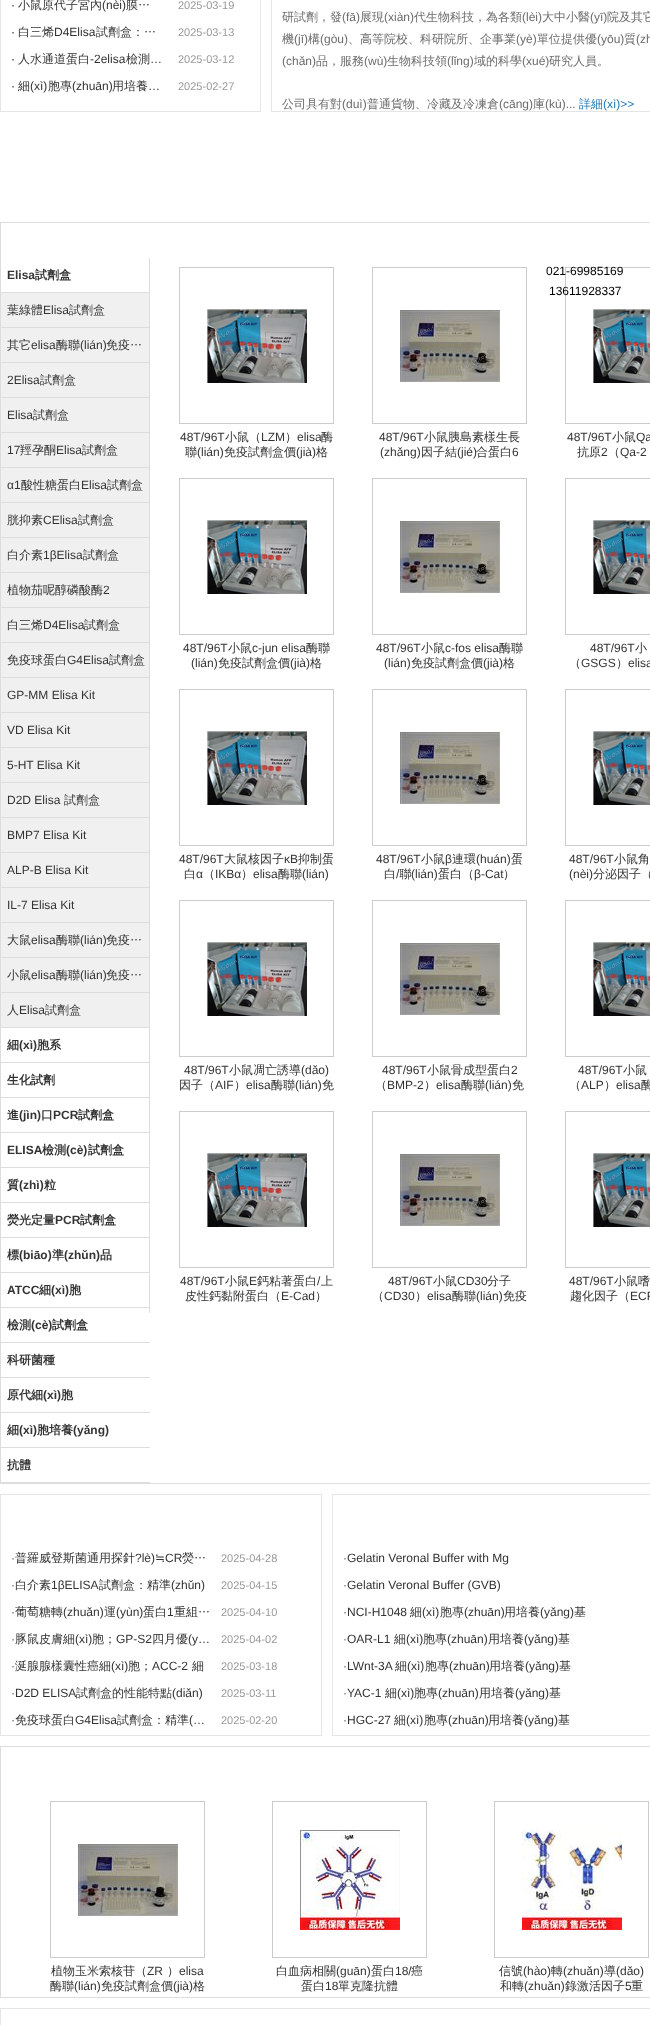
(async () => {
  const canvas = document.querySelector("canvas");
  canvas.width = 650;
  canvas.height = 2025;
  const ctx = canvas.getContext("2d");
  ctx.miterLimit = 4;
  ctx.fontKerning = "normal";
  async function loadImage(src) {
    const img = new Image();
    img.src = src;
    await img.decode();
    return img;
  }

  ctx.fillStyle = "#ffffff";
  ctx.fillRect(0, 0, 650, 2025);
  ctx.strokeStyle = "#e5e5e5";
  ctx.strokeRect(0.5, -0.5, 260, 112);
  ctx.strokeRect(271.5, -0.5, 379, 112);
  ctx.strokeStyle = "#dddddd";
  ctx.strokeRect(0.5, 222.5, 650, 1261);
  for (const [x, y, w, h, color] of [
    [149, 258, 1, 1055, "#dddddd"],
    [1, 292, 149, 1, "#dddddd"],
    [1, 293, 148, 734, "#f0f0f0"],
    [1, 327, 149, 1, "#dddddd"],
    [1, 362, 149, 1, "#dddddd"],
    [1, 397, 149, 1, "#dddddd"],
    [1, 432, 149, 1, "#dddddd"],
    [1, 467, 149, 1, "#dddddd"],
    [1, 502, 149, 1, "#dddddd"],
    [1, 537, 149, 1, "#dddddd"],
    [1, 572, 149, 1, "#dddddd"],
    [1, 607, 149, 1, "#dddddd"],
    [1, 642, 149, 1, "#dddddd"],
    [1, 677, 149, 1, "#dddddd"],
    [1, 712, 149, 1, "#dddddd"],
    [1, 747, 149, 1, "#dddddd"],
    [1, 782, 149, 1, "#dddddd"],
    [1, 817, 149, 1, "#dddddd"],
    [1, 852, 149, 1, "#dddddd"],
    [1, 887, 149, 1, "#dddddd"],
    [1, 922, 149, 1, "#dddddd"],
    [1, 957, 149, 1, "#dddddd"],
    [1, 992, 149, 1, "#dddddd"],
    [1, 1027, 149, 1, "#dddddd"],
    [1, 1062, 149, 1, "#dddddd"],
    [1, 1097, 149, 1, "#dddddd"],
    [1, 1132, 149, 1, "#dddddd"],
    [1, 1167, 149, 1, "#dddddd"],
    [1, 1202, 149, 1, "#dddddd"],
    [1, 1237, 149, 1, "#dddddd"],
    [1, 1272, 149, 1, "#dddddd"],
    [1, 1307, 149, 1, "#dddddd"],
    [1, 1342, 149, 1, "#dddddd"],
    [1, 1377, 149, 1, "#dddddd"],
    [1, 1412, 149, 1, "#dddddd"],
    [1, 1447, 149, 1, "#dddddd"],
    [1, 1482, 149, 1, "#dddddd"],
    [179, 267, 155, 157, "#cccccc"],
    [180, 268, 153, 155, "#ffffff"],
  ]) {
    ctx.fillStyle = color;
    ctx.fillRect(x, y, w, h);
  }
  ctx.drawImage(await loadImage("img/1.png"), 207, 309, 100, 74);
  ctx.fillStyle = "#cccccc";
  ctx.fillRect(372, 267, 155, 157);
  ctx.fillStyle = "#ffffff";
  ctx.fillRect(373, 268, 153, 155);
  ctx.drawImage(await loadImage("img/2.png"), 400, 310, 100, 72);
  ctx.fillStyle = "#cccccc";
  ctx.fillRect(565, 267, 85, 157);
  ctx.fillStyle = "#ffffff";
  ctx.fillRect(566, 268, 84, 155);
  ctx.drawImage(await loadImage("img/3.png"), 593, 309, 57, 74);
  ctx.fillStyle = "#cccccc";
  ctx.fillRect(179, 478, 155, 157);
  ctx.fillStyle = "#ffffff";
  ctx.fillRect(180, 479, 153, 155);
  ctx.drawImage(await loadImage("img/1.png"), 207, 520, 100, 74);
  ctx.fillStyle = "#cccccc";
  ctx.fillRect(372, 478, 155, 157);
  ctx.fillStyle = "#ffffff";
  ctx.fillRect(373, 479, 153, 155);
  ctx.drawImage(await loadImage("img/2.png"), 400, 521, 100, 72);
  ctx.fillStyle = "#cccccc";
  ctx.fillRect(565, 478, 85, 157);
  ctx.fillStyle = "#ffffff";
  ctx.fillRect(566, 479, 84, 155);
  ctx.drawImage(await loadImage("img/3.png"), 593, 520, 57, 74);
  ctx.fillStyle = "#cccccc";
  ctx.fillRect(179, 689, 155, 157);
  ctx.fillStyle = "#ffffff";
  ctx.fillRect(180, 690, 153, 155);
  ctx.drawImage(await loadImage("img/1.png"), 207, 731, 100, 74);
  ctx.fillStyle = "#cccccc";
  ctx.fillRect(372, 689, 155, 157);
  ctx.fillStyle = "#ffffff";
  ctx.fillRect(373, 690, 153, 155);
  ctx.drawImage(await loadImage("img/2.png"), 400, 732, 100, 72);
  ctx.fillStyle = "#cccccc";
  ctx.fillRect(565, 689, 85, 157);
  ctx.fillStyle = "#ffffff";
  ctx.fillRect(566, 690, 84, 155);
  ctx.drawImage(await loadImage("img/3.png"), 593, 731, 57, 74);
  ctx.fillStyle = "#cccccc";
  ctx.fillRect(179, 900, 155, 157);
  ctx.fillStyle = "#ffffff";
  ctx.fillRect(180, 901, 153, 155);
  ctx.drawImage(await loadImage("img/1.png"), 207, 942, 100, 74);
  ctx.fillStyle = "#cccccc";
  ctx.fillRect(372, 900, 155, 157);
  ctx.fillStyle = "#ffffff";
  ctx.fillRect(373, 901, 153, 155);
  ctx.drawImage(await loadImage("img/2.png"), 400, 943, 100, 72);
  ctx.fillStyle = "#cccccc";
  ctx.fillRect(565, 900, 85, 157);
  ctx.fillStyle = "#ffffff";
  ctx.fillRect(566, 901, 84, 155);
  ctx.drawImage(await loadImage("img/3.png"), 593, 942, 57, 74);
  ctx.fillStyle = "#cccccc";
  ctx.fillRect(179, 1111, 155, 157);
  ctx.fillStyle = "#ffffff";
  ctx.fillRect(180, 1112, 153, 155);
  ctx.drawImage(await loadImage("img/1.png"), 207, 1153, 100, 74);
  ctx.fillStyle = "#cccccc";
  ctx.fillRect(372, 1111, 155, 157);
  ctx.fillStyle = "#ffffff";
  ctx.fillRect(373, 1112, 153, 155);
  ctx.drawImage(await loadImage("img/2.png"), 400, 1154, 100, 72);
  ctx.fillStyle = "#cccccc";
  ctx.fillRect(565, 1111, 85, 157);
  ctx.fillStyle = "#ffffff";
  ctx.fillRect(566, 1112, 84, 155);
  ctx.drawImage(await loadImage("img/3.png"), 593, 1153, 57, 74);
  ctx.strokeStyle = "#e5e5e5";
  ctx.strokeRect(0.5, 1494.5, 321, 241);
  ctx.strokeRect(332.5, 1494.5, 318, 241);
  ctx.strokeStyle = "#dddddd";
  ctx.strokeRect(0.5, 1746.5, 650, 251);
  ctx.fillStyle = "#cccccc";
  ctx.fillRect(50, 1801, 155, 157);
  ctx.fillStyle = "#ffffff";
  ctx.fillRect(51, 1802, 153, 155);
  ctx.drawImage(await loadImage("img/4.png"), 78, 1844, 100, 72);
  ctx.fillStyle = "#cccccc";
  ctx.fillRect(272, 1801, 155, 157);
  ctx.fillStyle = "#ffffff";
  ctx.fillRect(273, 1802, 153, 155);
  ctx.drawImage(await loadImage("img/5.png"), 300, 1830, 100, 100);
  ctx.fillStyle = "#cccccc";
  ctx.fillRect(494, 1801, 155, 157);
  ctx.fillStyle = "#ffffff";
  ctx.fillRect(495, 1802, 153, 155);
  ctx.drawImage(await loadImage("img/6.png"), 522, 1830, 100, 100);
  ctx.strokeStyle = "#e5e5e5";
  ctx.strokeRect(0.5, 2008.5, 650, 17);
  ctx.font = "12px Liberation Sans";
  ctx.fillStyle = "#333333";
  ctx.fillText("·", 11, 9);
  ctx.font = "500 12px WenQuanYi Zen Hei";
  ctx.fillText("小鼠原代子宮內", 18, 9);
  ctx.font = "12px Liberation Sans";
  ctx.fillText("(nèi)", 102, 9);
  ctx.font = "500 12px WenQuanYi Zen Hei";
  ctx.fillText("膜…", 126, 9);
  ctx.font = "11px Liberation Sans";
  ctx.fillStyle = "#9a9a9a";
  ctx.fillText("2025-03-19", 178, 9);
  ctx.font = "12px Liberation Sans";
  ctx.fillStyle = "#333333";
  ctx.fillText("·", 11, 36);
  ctx.font = "500 12px WenQuanYi Zen Hei";
  ctx.fillText("白三烯", 18, 36);
  ctx.font = "12px Liberation Sans";
  ctx.fillText("D4Elisa", 54, 36);
  ctx.font = "500 12px WenQuanYi Zen Hei";
  ctx.fillText("試劑盒：…", 96, 36);
  ctx.font = "11px Liberation Sans";
  ctx.fillStyle = "#9a9a9a";
  ctx.fillText("2025-03-13", 178, 36);
  ctx.font = "12px Liberation Sans";
  ctx.fillStyle = "#333333";
  ctx.fillText("·", 11, 63);
  ctx.font = "500 12px WenQuanYi Zen Hei";
  ctx.fillText("人水通道蛋白", 18, 63);
  ctx.font = "12px Liberation Sans";
  ctx.fillText("-2elisa", 90, 63);
  ctx.font = "500 12px WenQuanYi Zen Hei";
  ctx.fillText("檢測", 126, 63);
  ctx.font = "12px Liberation Sans";
  ctx.fillText("…", 150, 63);
  ctx.font = "11px Liberation Sans";
  ctx.fillStyle = "#9a9a9a";
  ctx.fillText("2025-03-12", 178, 63);
  ctx.font = "12px Liberation Sans";
  ctx.fillStyle = "#333333";
  ctx.fillText("·", 11, 90);
  ctx.font = "500 12px WenQuanYi Zen Hei";
  ctx.fillText("細", 18, 90);
  ctx.font = "12px Liberation Sans";
  ctx.fillText("(xì)", 30, 90);
  ctx.font = "500 12px WenQuanYi Zen Hei";
  ctx.fillText("胞專", 48, 90);
  ctx.font = "12px Liberation Sans";
  ctx.fillText("(zhuān)", 72, 90);
  ctx.font = "500 12px WenQuanYi Zen Hei";
  ctx.fillText("用培養", 112, 90);
  ctx.font = "12px Liberation Sans";
  ctx.fillText("…", 148, 90);
  ctx.font = "11px Liberation Sans";
  ctx.fillStyle = "#9a9a9a";
  ctx.fillText("2025-02-27", 178, 90);
  ctx.font = "500 12px WenQuanYi Zen Hei";
  ctx.fillStyle = "#6c6c6c";
  ctx.fillText("研試劑，發", 282, 21);
  ctx.font = "12px Liberation Sans";
  ctx.fillText("(fā)", 342, 21);
  ctx.font = "500 12px WenQuanYi Zen Hei";
  ctx.fillText("展現", 360, 21);
  ctx.font = "12px Liberation Sans";
  ctx.fillText("(xiàn)", 384, 21);
  ctx.font = "500 12px WenQuanYi Zen Hei";
  ctx.fillText("代生物科技，為各類", 414, 21);
  ctx.font = "12px Liberation Sans";
  ctx.fillText("(lèi)", 522, 21);
  ctx.font = "500 12px WenQuanYi Zen Hei";
  ctx.fillText("大中小醫", 542, 21);
  ctx.font = "12px Liberation Sans";
  ctx.fillText("(yī)", 590, 21);
  ctx.font = "500 12px WenQuanYi Zen Hei";
  ctx.fillText("院及其它", 607, 21);
  ctx.fillText("機", 282, 43);
  ctx.font = "12px Liberation Sans";
  ctx.fillText("(jī)", 294, 43);
  ctx.font = "500 12px WenQuanYi Zen Hei";
  ctx.fillText("構", 308, 43);
  ctx.font = "12px Liberation Sans";
  ctx.fillText("(gòu)", 320, 43);
  ctx.font = "500 12px WenQuanYi Zen Hei";
  ctx.fillText("、高等院校、科研院所、企事業", 348, 43);
  ctx.font = "12px Liberation Sans";
  ctx.fillText("(yè)", 516, 43);
  ctx.font = "500 12px WenQuanYi Zen Hei";
  ctx.fillText("單位提供優", 537, 43);
  ctx.font = "12px Liberation Sans";
  ctx.fillText("(yōu)", 597, 43);
  ctx.font = "500 12px WenQuanYi Zen Hei";
  ctx.fillText("質", 624, 43);
  ctx.font = "12px Liberation Sans";
  ctx.fillText("(zh", 636, 43);
  ctx.fillText("(chǎn)", 282, 65);
  ctx.font = "500 12px WenQuanYi Zen Hei";
  ctx.fillText("品，服務", 316, 65);
  ctx.font = "12px Liberation Sans";
  ctx.fillText("(wù)", 364, 65);
  ctx.font = "500 12px WenQuanYi Zen Hei";
  ctx.fillText("生物科技領", 387, 65);
  ctx.font = "12px Liberation Sans";
  ctx.fillText("(lǐng)", 447, 65);
  ctx.font = "500 12px WenQuanYi Zen Hei";
  ctx.fillText("域的科學", 474, 65);
  ctx.font = "12px Liberation Sans";
  ctx.fillText("(xué)", 522, 65);
  ctx.font = "500 12px WenQuanYi Zen Hei";
  ctx.fillText("研究人員。", 549, 65);
  ctx.fillText("公司具有對", 282, 108);
  ctx.font = "12px Liberation Sans";
  ctx.fillText("(duì)", 342, 108);
  ctx.font = "500 12px WenQuanYi Zen Hei";
  ctx.fillText("普通貨物、冷藏及冷凍倉", 367, 108);
  ctx.font = "12px Liberation Sans";
  ctx.fillText("(cāng)", 499, 108);
  ctx.font = "500 12px WenQuanYi Zen Hei";
  ctx.fillText("庫", 533, 108);
  ctx.font = "12px Liberation Sans";
  ctx.fillText("(kù)...", 545, 108);
  ctx.font = "500 12px WenQuanYi Zen Hei";
  ctx.fillStyle = "#2078b5";
  ctx.fillText("詳細", 579, 108);
  ctx.font = "12px Liberation Sans";
  ctx.fillText("(xì)>>", 603, 108);
  ctx.font = "bold 12px Liberation Sans";
  ctx.fillStyle = "#333333";
  ctx.fillText("Elisa", 7, 279);
  ctx.font = "bold 12px WenQuanYi Zen Hei";
  ctx.fillText("試劑盒", 35, 279);
  ctx.font = "500 12px WenQuanYi Zen Hei";
  ctx.fillText("葉綠體", 7, 314);
  ctx.font = "12px Liberation Sans";
  ctx.fillText("Elisa", 43, 314);
  ctx.font = "500 12px WenQuanYi Zen Hei";
  ctx.fillText("試劑盒", 69, 314);
  ctx.fillText("其它", 7, 349);
  ctx.font = "12px Liberation Sans";
  ctx.fillText("elisa", 31, 349);
  ctx.font = "500 12px WenQuanYi Zen Hei";
  ctx.fillText("酶聯", 56, 349);
  ctx.font = "12px Liberation Sans";
  ctx.fillText("(lián)", 80, 349);
  ctx.font = "500 12px WenQuanYi Zen Hei";
  ctx.fillText("免疫…", 106, 349);
  ctx.font = "12px Liberation Sans";
  ctx.fillText("2Elisa", 7, 384);
  ctx.font = "500 12px WenQuanYi Zen Hei";
  ctx.fillText("試劑盒", 40, 384);
  ctx.font = "12px Liberation Sans";
  ctx.fillText("Elisa", 7, 419);
  ctx.font = "500 12px WenQuanYi Zen Hei";
  ctx.fillText("試劑盒", 33, 419);
  ctx.font = "12px Liberation Sans";
  ctx.fillText("17", 7, 454);
  ctx.font = "500 12px WenQuanYi Zen Hei";
  ctx.fillText("羥孕酮", 20, 454);
  ctx.font = "12px Liberation Sans";
  ctx.fillText("Elisa", 56, 454);
  ctx.font = "500 12px WenQuanYi Zen Hei";
  ctx.fillText("試劑盒", 82, 454);
  ctx.font = "12px Liberation Sans";
  ctx.fillText("α1", 7, 489);
  ctx.font = "500 12px WenQuanYi Zen Hei";
  ctx.fillText("酸性糖蛋白", 21, 489);
  ctx.font = "12px Liberation Sans";
  ctx.fillText("Elisa", 81, 489);
  ctx.font = "500 12px WenQuanYi Zen Hei";
  ctx.fillText("試劑盒", 107, 489);
  ctx.fillText("胱抑素", 7, 524);
  ctx.font = "12px Liberation Sans";
  ctx.fillText("CElisa", 43, 524);
  ctx.font = "500 12px WenQuanYi Zen Hei";
  ctx.fillText("試劑盒", 78, 524);
  ctx.fillText("白介素", 7, 559);
  ctx.font = "12px Liberation Sans";
  ctx.fillText("1βElisa", 43, 559);
  ctx.font = "500 12px WenQuanYi Zen Hei";
  ctx.fillText("試劑盒", 83, 559);
  ctx.fillText("植物茄呢醇磷酸酶", 7, 594);
  ctx.font = "12px Liberation Sans";
  ctx.fillText("2", 103, 594);
  ctx.font = "500 12px WenQuanYi Zen Hei";
  ctx.fillText("白三烯", 7, 629);
  ctx.font = "12px Liberation Sans";
  ctx.fillText("D4Elisa", 43, 629);
  ctx.font = "500 12px WenQuanYi Zen Hei";
  ctx.fillText("試劑盒", 84, 629);
  ctx.fillText("免疫球蛋白", 7, 664);
  ctx.font = "12px Liberation Sans";
  ctx.fillText("G4Elisa", 67, 664);
  ctx.font = "500 12px WenQuanYi Zen Hei";
  ctx.fillText("試劑盒", 109, 664);
  ctx.font = "12px Liberation Sans";
  for (const [text, x, y] of [
    ["GP-MM Elisa Kit", 7, 699],
    ["VD Elisa Kit", 7, 734],
    ["5-HT Elisa Kit", 7, 769],
    ["D2D Elisa", 7, 804],
  ]) {
    ctx.fillText(text, x, y);
  }
  ctx.font = "500 12px WenQuanYi Zen Hei";
  ctx.fillText("試劑盒", 64, 804);
  ctx.font = "12px Liberation Sans";
  for (const [text, x, y] of [
    ["BMP7 Elisa Kit", 7, 839],
    ["ALP-B Elisa Kit", 7, 874],
    ["IL-7 Elisa Kit", 7, 909],
  ]) {
    ctx.fillText(text, x, y);
  }
  ctx.font = "500 12px WenQuanYi Zen Hei";
  ctx.fillText("大鼠", 7, 944);
  ctx.font = "12px Liberation Sans";
  ctx.fillText("elisa", 31, 944);
  ctx.font = "500 12px WenQuanYi Zen Hei";
  ctx.fillText("酶聯", 56, 944);
  ctx.font = "12px Liberation Sans";
  ctx.fillText("(lián)", 80, 944);
  ctx.font = "500 12px WenQuanYi Zen Hei";
  ctx.fillText("免疫…", 106, 944);
  ctx.fillText("小鼠", 7, 979);
  ctx.font = "12px Liberation Sans";
  ctx.fillText("elisa", 31, 979);
  ctx.font = "500 12px WenQuanYi Zen Hei";
  ctx.fillText("酶聯", 56, 979);
  ctx.font = "12px Liberation Sans";
  ctx.fillText("(lián)", 80, 979);
  ctx.font = "500 12px WenQuanYi Zen Hei";
  ctx.fillText("免疫…", 106, 979);
  ctx.fillText("人", 7, 1014);
  ctx.font = "12px Liberation Sans";
  ctx.fillText("Elisa", 19, 1014);
  ctx.font = "500 12px WenQuanYi Zen Hei";
  ctx.fillText("試劑盒", 45, 1014);
  ctx.font = "bold 12px WenQuanYi Zen Hei";
  ctx.fillText("細", 7, 1049);
  ctx.font = "bold 12px Liberation Sans";
  ctx.fillText("(xì)", 19, 1049);
  ctx.font = "bold 12px WenQuanYi Zen Hei";
  for (const [text, x, y] of [
    ["胞系", 37, 1049],
    ["生化試劑", 7, 1084],
    ["進", 7, 1119],
  ]) {
    ctx.fillText(text, x, y);
  }
  ctx.font = "bold 12px Liberation Sans";
  ctx.fillText("(jìn)", 19, 1119);
  ctx.font = "bold 12px WenQuanYi Zen Hei";
  ctx.fillText("口", 41, 1119);
  ctx.font = "bold 12px Liberation Sans";
  ctx.fillText("PCR", 53, 1119);
  ctx.font = "bold 12px WenQuanYi Zen Hei";
  ctx.fillText("試劑盒", 78, 1119);
  ctx.font = "bold 12px Liberation Sans";
  ctx.fillText("ELISA", 7, 1154);
  ctx.font = "bold 12px WenQuanYi Zen Hei";
  ctx.fillText("檢測", 42, 1154);
  ctx.font = "bold 12px Liberation Sans";
  ctx.fillText("(cè)", 66, 1154);
  ctx.font = "bold 12px WenQuanYi Zen Hei";
  ctx.fillText("試劑盒", 88, 1154);
  ctx.fillText("質", 7, 1189);
  ctx.font = "bold 12px Liberation Sans";
  ctx.fillText("(zhì)", 19, 1189);
  ctx.font = "bold 12px WenQuanYi Zen Hei";
  ctx.fillText("粒", 44, 1189);
  ctx.fillText("熒光定量", 7, 1224);
  ctx.font = "bold 12px Liberation Sans";
  ctx.fillText("PCR", 55, 1224);
  ctx.font = "bold 12px WenQuanYi Zen Hei";
  ctx.fillText("試劑盒", 80, 1224);
  ctx.fillText("標", 7, 1259);
  ctx.font = "bold 12px Liberation Sans";
  ctx.fillText("(biāo)", 19, 1259);
  ctx.font = "bold 12px WenQuanYi Zen Hei";
  ctx.fillText("準", 52, 1259);
  ctx.font = "bold 12px Liberation Sans";
  ctx.fillText("(zhǔn)", 64, 1259);
  ctx.font = "bold 12px WenQuanYi Zen Hei";
  ctx.fillText("品", 100, 1259);
  ctx.font = "bold 12px Liberation Sans";
  ctx.fillText("ATCC", 7, 1294);
  ctx.font = "bold 12px WenQuanYi Zen Hei";
  ctx.fillText("細", 39, 1294);
  ctx.font = "bold 12px Liberation Sans";
  ctx.fillText("(xì)", 51, 1294);
  ctx.font = "bold 12px WenQuanYi Zen Hei";
  ctx.fillText("胞", 69, 1294);
  ctx.fillText("檢測", 7, 1329);
  ctx.font = "bold 12px Liberation Sans";
  ctx.fillText("(cè)", 31, 1329);
  ctx.font = "bold 12px WenQuanYi Zen Hei";
  for (const [text, x, y] of [
    ["試劑盒", 52, 1329],
    ["科研菌種", 7, 1364],
    ["原代細", 7, 1399],
  ]) {
    ctx.fillText(text, x, y);
  }
  ctx.font = "bold 12px Liberation Sans";
  ctx.fillText("(xì)", 43, 1399);
  ctx.font = "bold 12px WenQuanYi Zen Hei";
  ctx.fillText("胞", 61, 1399);
  ctx.fillText("細", 7, 1434);
  ctx.font = "bold 12px Liberation Sans";
  ctx.fillText("(xì)", 19, 1434);
  ctx.font = "bold 12px WenQuanYi Zen Hei";
  ctx.fillText("胞培養", 37, 1434);
  ctx.font = "bold 12px Liberation Sans";
  ctx.fillText("(yǎng)", 73, 1434);
  ctx.font = "bold 12px WenQuanYi Zen Hei";
  ctx.fillText("抗體", 7, 1469);
  ctx.font = "12px Liberation Sans";
  ctx.fillText("48T/96T", 180, 441);
  ctx.font = "500 12px WenQuanYi Zen Hei";
  ctx.fillText("小鼠（", 225, 441);
  ctx.font = "12px Liberation Sans";
  ctx.fillText("LZM", 261, 441);
  ctx.font = "500 12px WenQuanYi Zen Hei";
  ctx.fillText("）", 285, 441);
  ctx.font = "12px Liberation Sans";
  ctx.fillText("elisa", 297, 441);
  ctx.font = "500 12px WenQuanYi Zen Hei";
  ctx.fillText("酶", 321, 441);
  ctx.fillText("聯", 185, 456);
  ctx.font = "12px Liberation Sans";
  ctx.fillText("(lián)", 197, 456);
  ctx.font = "500 12px WenQuanYi Zen Hei";
  ctx.fillText("免疫試劑盒價", 224, 456);
  ctx.font = "12px Liberation Sans";
  ctx.fillText("(jià)", 296, 456);
  ctx.font = "500 12px WenQuanYi Zen Hei";
  ctx.fillText("格", 316, 456);
  ctx.font = "12px Liberation Sans";
  ctx.fillText("48T/96T", 379, 441);
  ctx.font = "500 12px WenQuanYi Zen Hei";
  ctx.fillText("小鼠胰島素樣生長", 424, 441);
  ctx.font = "12px Liberation Sans";
  ctx.fillText("(zhǎng)", 380, 456);
  ctx.font = "500 12px WenQuanYi Zen Hei";
  ctx.fillText("因子結", 421, 456);
  ctx.font = "12px Liberation Sans";
  ctx.fillText("(jié)", 457, 456);
  ctx.font = "500 12px WenQuanYi Zen Hei";
  ctx.fillText("合蛋白", 476, 456);
  ctx.font = "12px Liberation Sans";
  ctx.fillText("6", 512, 456);
  ctx.fillText("48T/96T", 567, 441);
  ctx.font = "500 12px WenQuanYi Zen Hei";
  ctx.fillText("小鼠", 612, 441);
  ctx.font = "12px Liberation Sans";
  ctx.fillText("Qa", 636, 441);
  ctx.font = "500 12px WenQuanYi Zen Hei";
  ctx.fillText("抗原", 577, 456);
  ctx.font = "12px Liberation Sans";
  ctx.fillText("2", 601, 456);
  ctx.font = "500 12px WenQuanYi Zen Hei";
  ctx.fillText("（", 608, 456);
  ctx.font = "12px Liberation Sans";
  ctx.fillText("Qa-2", 620, 456);
  ctx.fillText("48T/96T", 183, 652);
  ctx.font = "500 12px WenQuanYi Zen Hei";
  ctx.fillText("小鼠", 228, 652);
  ctx.font = "12px Liberation Sans";
  ctx.fillText("c-jun elisa", 252, 652);
  ctx.font = "500 12px WenQuanYi Zen Hei";
  ctx.fillText("酶聯", 306, 652);
  ctx.font = "12px Liberation Sans";
  ctx.fillText("(lián)", 191, 667);
  ctx.font = "500 12px WenQuanYi Zen Hei";
  ctx.fillText("免疫試劑盒價", 218, 667);
  ctx.font = "12px Liberation Sans";
  ctx.fillText("(jià)", 290, 667);
  ctx.font = "500 12px WenQuanYi Zen Hei";
  ctx.fillText("格", 310, 667);
  ctx.font = "12px Liberation Sans";
  ctx.fillText("48T/96T", 376, 652);
  ctx.font = "500 12px WenQuanYi Zen Hei";
  ctx.fillText("小鼠", 421, 652);
  ctx.font = "12px Liberation Sans";
  ctx.fillText("c-fos elisa", 445, 652);
  ctx.font = "500 12px WenQuanYi Zen Hei";
  ctx.fillText("酶聯", 499, 652);
  ctx.font = "12px Liberation Sans";
  ctx.fillText("(lián)", 384, 667);
  ctx.font = "500 12px WenQuanYi Zen Hei";
  ctx.fillText("免疫試劑盒價", 411, 667);
  ctx.font = "12px Liberation Sans";
  ctx.fillText("(jià)", 483, 667);
  ctx.font = "500 12px WenQuanYi Zen Hei";
  ctx.fillText("格", 503, 667);
  ctx.font = "12px Liberation Sans";
  ctx.fillText("48T/96T", 590, 652);
  ctx.font = "500 12px WenQuanYi Zen Hei";
  ctx.fillText("小", 635, 652);
  ctx.fillText("（", 569, 667);
  ctx.font = "12px Liberation Sans";
  ctx.fillText("GSGS", 581, 667);
  ctx.font = "500 12px WenQuanYi Zen Hei";
  ctx.fillText("）", 616, 667);
  ctx.font = "12px Liberation Sans";
  ctx.fillText("elisa", 628, 667);
  ctx.fillText("48T/96T", 179, 863);
  ctx.font = "500 12px WenQuanYi Zen Hei";
  ctx.fillText("大鼠核因子", 224, 863);
  ctx.font = "12px Liberation Sans";
  ctx.fillText("κB", 284, 863);
  ctx.font = "500 12px WenQuanYi Zen Hei";
  ctx.fillText("抑制蛋", 298, 863);
  ctx.fillText("白", 184, 878);
  ctx.font = "12px Liberation Sans";
  ctx.fillText("α", 196, 878);
  ctx.font = "500 12px WenQuanYi Zen Hei";
  ctx.fillText("（", 203, 878);
  ctx.font = "12px Liberation Sans";
  ctx.fillText("IKBα", 215, 878);
  ctx.font = "500 12px WenQuanYi Zen Hei";
  ctx.fillText("）", 241, 878);
  ctx.font = "12px Liberation Sans";
  ctx.fillText("elisa", 253, 878);
  ctx.font = "500 12px WenQuanYi Zen Hei";
  ctx.fillText("酶聯", 278, 878);
  ctx.font = "12px Liberation Sans";
  ctx.fillText("(lián)", 302, 878);
  ctx.fillText("48T/96T", 376, 863);
  ctx.font = "500 12px WenQuanYi Zen Hei";
  ctx.fillText("小鼠", 421, 863);
  ctx.font = "12px Liberation Sans";
  ctx.fillText("β", 445, 863);
  ctx.font = "500 12px WenQuanYi Zen Hei";
  ctx.fillText("連環", 452, 863);
  ctx.font = "12px Liberation Sans";
  ctx.fillText("(huán)", 476, 863);
  ctx.font = "500 12px WenQuanYi Zen Hei";
  for (const [text, x, y] of [
    ["蛋", 511, 863],
    ["白 聯", 384, 878],
    ["蛋白（", 438, 878],
  ]) {
    ctx.fillText(text, x, y);
  }
  ctx.font = "12px Liberation Sans";
  for (const [text, x, y] of [
    ["/", 396, 878],
    ["(lián)", 411, 878],
    ["β-Cat", 474, 878],
  ]) {
    ctx.fillText(text, x, y);
  }
  ctx.font = "500 12px WenQuanYi Zen Hei";
  ctx.fillText("）", 503, 878);
  ctx.font = "12px Liberation Sans";
  ctx.fillText("48T/96T", 569, 863);
  ctx.font = "500 12px WenQuanYi Zen Hei";
  ctx.fillText("小鼠角", 614, 863);
  ctx.font = "12px Liberation Sans";
  ctx.fillText("(nèi)", 569, 878);
  ctx.font = "500 12px WenQuanYi Zen Hei";
  ctx.fillText("分泌因子（", 593, 878);
  ctx.font = "12px Liberation Sans";
  ctx.fillText("48T/96T", 184, 1074);
  ctx.font = "500 12px WenQuanYi Zen Hei";
  ctx.fillText("小鼠凋亡誘導", 229, 1074);
  ctx.font = "12px Liberation Sans";
  ctx.fillText("(dǎo)", 301, 1074);
  ctx.font = "500 12px WenQuanYi Zen Hei";
  ctx.fillText("因子（", 179, 1089);
  ctx.font = "12px Liberation Sans";
  ctx.fillText("AIF", 215, 1089);
  ctx.font = "500 12px WenQuanYi Zen Hei";
  ctx.fillText("）", 234, 1089);
  ctx.font = "12px Liberation Sans";
  ctx.fillText("elisa", 246, 1089);
  ctx.font = "500 12px WenQuanYi Zen Hei";
  ctx.fillText("酶聯", 271, 1089);
  ctx.font = "12px Liberation Sans";
  ctx.fillText("(lián)", 295, 1089);
  ctx.font = "500 12px WenQuanYi Zen Hei";
  ctx.fillText("免", 322, 1089);
  ctx.font = "12px Liberation Sans";
  ctx.fillText("48T/96T", 382, 1074);
  ctx.font = "500 12px WenQuanYi Zen Hei";
  ctx.fillText("小鼠骨成型蛋白", 427, 1074);
  ctx.font = "12px Liberation Sans";
  ctx.fillText("2", 511, 1074);
  ctx.font = "500 12px WenQuanYi Zen Hei";
  ctx.fillText("（", 375, 1089);
  ctx.font = "12px Liberation Sans";
  ctx.fillText("BMP-2", 387, 1089);
  ctx.font = "500 12px WenQuanYi Zen Hei";
  ctx.fillText("）", 424, 1089);
  ctx.font = "12px Liberation Sans";
  ctx.fillText("elisa", 436, 1089);
  ctx.font = "500 12px WenQuanYi Zen Hei";
  ctx.fillText("酶聯", 461, 1089);
  ctx.font = "12px Liberation Sans";
  ctx.fillText("(lián)", 485, 1089);
  ctx.font = "500 12px WenQuanYi Zen Hei";
  ctx.fillText("免", 512, 1089);
  ctx.font = "12px Liberation Sans";
  ctx.fillText("48T/96T", 578, 1074);
  ctx.font = "500 12px WenQuanYi Zen Hei";
  ctx.fillText("小鼠", 623, 1074);
  ctx.fillText("（", 569, 1089);
  ctx.font = "12px Liberation Sans";
  ctx.fillText("ALP", 581, 1089);
  ctx.font = "500 12px WenQuanYi Zen Hei";
  ctx.fillText("）", 604, 1089);
  ctx.font = "12px Liberation Sans";
  ctx.fillText("elisa", 616, 1089);
  ctx.font = "500 12px WenQuanYi Zen Hei";
  ctx.fillText("酶", 641, 1089);
  ctx.font = "12px Liberation Sans";
  ctx.fillText("48T/96T", 180, 1285);
  ctx.font = "500 12px WenQuanYi Zen Hei";
  ctx.fillText("小鼠", 225, 1285);
  ctx.font = "12px Liberation Sans";
  ctx.fillText("E", 249, 1285);
  ctx.font = "500 12px WenQuanYi Zen Hei";
  ctx.fillText("鈣粘著蛋白", 257, 1285);
  ctx.font = "12px Liberation Sans";
  ctx.fillText("/", 317, 1285);
  ctx.font = "500 12px WenQuanYi Zen Hei";
  ctx.fillText("上", 321, 1285);
  ctx.fillText("皮性鈣黏附蛋白（", 185, 1300);
  ctx.font = "12px Liberation Sans";
  ctx.fillText("E-Cad", 281, 1300);
  ctx.font = "500 12px WenQuanYi Zen Hei";
  ctx.fillText("）", 315, 1300);
  ctx.font = "12px Liberation Sans";
  ctx.fillText("48T/96T", 388, 1285);
  ctx.font = "500 12px WenQuanYi Zen Hei";
  ctx.fillText("小鼠", 433, 1285);
  ctx.font = "12px Liberation Sans";
  ctx.fillText("CD30", 457, 1285);
  ctx.font = "500 12px WenQuanYi Zen Hei";
  ctx.fillText("分子", 487, 1285);
  ctx.fillText("（", 372, 1300);
  ctx.font = "12px Liberation Sans";
  ctx.fillText("CD30", 384, 1300);
  ctx.font = "500 12px WenQuanYi Zen Hei";
  ctx.fillText("）", 415, 1300);
  ctx.font = "12px Liberation Sans";
  ctx.fillText("elisa", 427, 1300);
  ctx.font = "500 12px WenQuanYi Zen Hei";
  ctx.fillText("酶聯", 452, 1300);
  ctx.font = "12px Liberation Sans";
  ctx.fillText("(lián)", 476, 1300);
  ctx.font = "500 12px WenQuanYi Zen Hei";
  ctx.fillText("免疫", 503, 1300);
  ctx.font = "12px Liberation Sans";
  ctx.fillText("48T/96T", 569, 1285);
  ctx.font = "500 12px WenQuanYi Zen Hei";
  ctx.fillText("小鼠嗜", 614, 1285);
  ctx.fillText("趨化因子（", 570, 1300);
  ctx.font = "12px Liberation Sans";
  ctx.fillText("ECF", 630, 1300);
  ctx.fillStyle = "#6c6c6c";
  ctx.fillText("·", 11, 1562);
  ctx.font = "500 12px WenQuanYi Zen Hei";
  ctx.fillStyle = "#333333";
  ctx.fillText("普羅威登斯菌通用探針", 15, 1562);
  ctx.font = "12px Liberation Sans";
  ctx.fillText("?lè)", 135, 1562);
  ctx.font = "12px DejaVu Sans";
  ctx.fillText("≒", 155, 1562);
  ctx.font = "12px Liberation Sans";
  ctx.fillText("CR", 165, 1562);
  ctx.font = "500 12px WenQuanYi Zen Hei";
  ctx.fillText("熒…", 182, 1562);
  ctx.font = "11px Liberation Sans";
  ctx.fillStyle = "#9a9a9a";
  ctx.fillText("2025-04-28", 221, 1562);
  ctx.font = "12px Liberation Sans";
  ctx.fillStyle = "#6c6c6c";
  ctx.fillText("·", 11, 1589);
  ctx.font = "500 12px WenQuanYi Zen Hei";
  ctx.fillStyle = "#333333";
  ctx.fillText("白介素", 15, 1589);
  ctx.font = "12px Liberation Sans";
  ctx.fillText("1βELISA", 51, 1589);
  ctx.font = "500 12px WenQuanYi Zen Hei";
  ctx.fillText("試劑盒：精準", 99, 1589);
  ctx.font = "12px Liberation Sans";
  ctx.fillText("(zhǔn)", 171, 1589);
  ctx.font = "11px Liberation Sans";
  ctx.fillStyle = "#9a9a9a";
  ctx.fillText("2025-04-15", 221, 1589);
  ctx.font = "12px Liberation Sans";
  ctx.fillStyle = "#6c6c6c";
  ctx.fillText("·", 11, 1616);
  ctx.font = "500 12px WenQuanYi Zen Hei";
  ctx.fillStyle = "#333333";
  ctx.fillText("葡萄糖轉", 15, 1616);
  ctx.font = "12px Liberation Sans";
  ctx.fillText("(zhuǎn)", 63, 1616);
  ctx.font = "500 12px WenQuanYi Zen Hei";
  ctx.fillText("運", 104, 1616);
  ctx.font = "12px Liberation Sans";
  ctx.fillText("(yùn)", 116, 1616);
  ctx.font = "500 12px WenQuanYi Zen Hei";
  ctx.fillText("蛋白", 143, 1616);
  ctx.font = "12px Liberation Sans";
  ctx.fillText("1", 167, 1616);
  ctx.font = "500 12px WenQuanYi Zen Hei";
  ctx.fillText("重組…", 174, 1616);
  ctx.font = "11px Liberation Sans";
  ctx.fillStyle = "#9a9a9a";
  ctx.fillText("2025-04-10", 221, 1616);
  ctx.font = "12px Liberation Sans";
  ctx.fillStyle = "#6c6c6c";
  ctx.fillText("·", 11, 1643);
  ctx.font = "500 12px WenQuanYi Zen Hei";
  ctx.fillStyle = "#333333";
  ctx.fillText("豚鼠皮膚細", 15, 1643);
  ctx.font = "12px Liberation Sans";
  ctx.fillText("(xì)", 75, 1643);
  ctx.font = "500 12px WenQuanYi Zen Hei";
  ctx.fillText("胞；", 92, 1643);
  ctx.font = "12px Liberation Sans";
  ctx.fillText("GP-S2", 116, 1643);
  ctx.font = "500 12px WenQuanYi Zen Hei";
  ctx.fillText("四月優", 152, 1643);
  ctx.font = "12px Liberation Sans";
  ctx.fillText("(y…", 188, 1643);
  ctx.font = "11px Liberation Sans";
  ctx.fillStyle = "#9a9a9a";
  ctx.fillText("2025-04-02", 221, 1643);
  ctx.font = "12px Liberation Sans";
  ctx.fillStyle = "#6c6c6c";
  ctx.fillText("·", 11, 1670);
  ctx.font = "500 12px WenQuanYi Zen Hei";
  ctx.fillStyle = "#333333";
  ctx.fillText("涎腺腺樣囊性癌細", 15, 1670);
  ctx.font = "12px Liberation Sans";
  ctx.fillText("(xì)", 111, 1670);
  ctx.font = "500 12px WenQuanYi Zen Hei";
  ctx.fillText("胞；", 128, 1670);
  ctx.font = "12px Liberation Sans";
  ctx.fillText("ACC-2", 152, 1670);
  ctx.font = "500 12px WenQuanYi Zen Hei";
  ctx.fillText("細", 192, 1670);
  ctx.font = "11px Liberation Sans";
  ctx.fillStyle = "#9a9a9a";
  ctx.fillText("2025-03-18", 221, 1670);
  ctx.font = "12px Liberation Sans";
  ctx.fillStyle = "#6c6c6c";
  ctx.fillText("·", 11, 1697);
  ctx.fillStyle = "#333333";
  ctx.fillText("D2D ELISA", 15, 1697);
  ctx.font = "500 12px WenQuanYi Zen Hei";
  ctx.fillText("試劑盒的性能特點", 76, 1697);
  ctx.font = "12px Liberation Sans";
  ctx.fillText("(diǎn)", 172, 1697);
  ctx.font = "11px Liberation Sans";
  ctx.fillStyle = "#9a9a9a";
  ctx.fillText("2025-03-11", 221, 1697);
  ctx.font = "12px Liberation Sans";
  ctx.fillStyle = "#6c6c6c";
  ctx.fillText("·", 11, 1724);
  ctx.font = "500 12px WenQuanYi Zen Hei";
  ctx.fillStyle = "#333333";
  ctx.fillText("免疫球蛋白", 15, 1724);
  ctx.font = "12px Liberation Sans";
  ctx.fillText("G4Elisa", 75, 1724);
  ctx.font = "500 12px WenQuanYi Zen Hei";
  ctx.fillText("試劑盒：精準", 117, 1724);
  ctx.font = "12px Liberation Sans";
  ctx.fillText("(…", 189, 1724);
  ctx.font = "11px Liberation Sans";
  ctx.fillStyle = "#9a9a9a";
  ctx.fillText("2025-02-20", 221, 1724);
  ctx.font = "12px Liberation Sans";
  ctx.fillStyle = "#6c6c6c";
  ctx.fillText("·", 343, 1562);
  ctx.fillStyle = "#333333";
  ctx.fillText("Gelatin Veronal Buffer with Mg", 347, 1562);
  ctx.fillStyle = "#6c6c6c";
  ctx.fillText("·", 343, 1589);
  ctx.fillStyle = "#333333";
  ctx.fillText("Gelatin Veronal Buffer (GVB)", 347, 1589);
  ctx.fillStyle = "#6c6c6c";
  ctx.fillText("·", 343, 1616);
  ctx.fillStyle = "#333333";
  ctx.fillText("NCI-H1048", 347, 1616);
  ctx.font = "500 12px WenQuanYi Zen Hei";
  ctx.fillText("細", 410, 1616);
  ctx.font = "12px Liberation Sans";
  ctx.fillText("(xì)", 422, 1616);
  ctx.font = "500 12px WenQuanYi Zen Hei";
  ctx.fillText("胞專", 440, 1616);
  ctx.font = "12px Liberation Sans";
  ctx.fillText("(zhuān)", 464, 1616);
  ctx.font = "500 12px WenQuanYi Zen Hei";
  ctx.fillText("用培養", 504, 1616);
  ctx.font = "12px Liberation Sans";
  ctx.fillText("(yǎng)", 540, 1616);
  ctx.font = "500 12px WenQuanYi Zen Hei";
  ctx.fillText("基", 574, 1616);
  ctx.font = "12px Liberation Sans";
  ctx.fillStyle = "#6c6c6c";
  ctx.fillText("·", 343, 1643);
  ctx.fillStyle = "#333333";
  ctx.fillText("OAR-L1", 347, 1643);
  ctx.font = "500 12px WenQuanYi Zen Hei";
  ctx.fillText("細", 394, 1643);
  ctx.font = "12px Liberation Sans";
  ctx.fillText("(xì)", 406, 1643);
  ctx.font = "500 12px WenQuanYi Zen Hei";
  ctx.fillText("胞專", 423, 1643);
  ctx.font = "12px Liberation Sans";
  ctx.fillText("(zhuān)", 447, 1643);
  ctx.font = "500 12px WenQuanYi Zen Hei";
  ctx.fillText("用培養", 488, 1643);
  ctx.font = "12px Liberation Sans";
  ctx.fillText("(yǎng)", 524, 1643);
  ctx.font = "500 12px WenQuanYi Zen Hei";
  ctx.fillText("基", 558, 1643);
  ctx.font = "12px Liberation Sans";
  ctx.fillStyle = "#6c6c6c";
  ctx.fillText("·", 343, 1670);
  ctx.fillStyle = "#333333";
  ctx.fillText("LWnt-3A", 347, 1670);
  ctx.font = "500 12px WenQuanYi Zen Hei";
  ctx.fillText("細", 395, 1670);
  ctx.font = "12px Liberation Sans";
  ctx.fillText("(xì)", 407, 1670);
  ctx.font = "500 12px WenQuanYi Zen Hei";
  ctx.fillText("胞專", 425, 1670);
  ctx.font = "12px Liberation Sans";
  ctx.fillText("(zhuān)", 449, 1670);
  ctx.font = "500 12px WenQuanYi Zen Hei";
  ctx.fillText("用培養", 489, 1670);
  ctx.font = "12px Liberation Sans";
  ctx.fillText("(yǎng)", 525, 1670);
  ctx.font = "500 12px WenQuanYi Zen Hei";
  ctx.fillText("基", 559, 1670);
  ctx.font = "12px Liberation Sans";
  ctx.fillStyle = "#6c6c6c";
  ctx.fillText("·", 343, 1697);
  ctx.fillStyle = "#333333";
  ctx.fillText("YAC-1", 347, 1697);
  ctx.font = "500 12px WenQuanYi Zen Hei";
  ctx.fillText("細", 385, 1697);
  ctx.font = "12px Liberation Sans";
  ctx.fillText("(xì)", 397, 1697);
  ctx.font = "500 12px WenQuanYi Zen Hei";
  ctx.fillText("胞專", 414, 1697);
  ctx.font = "12px Liberation Sans";
  ctx.fillText("(zhuān)", 438, 1697);
  ctx.font = "500 12px WenQuanYi Zen Hei";
  ctx.fillText("用培養", 479, 1697);
  ctx.font = "12px Liberation Sans";
  ctx.fillText("(yǎng)", 515, 1697);
  ctx.font = "500 12px WenQuanYi Zen Hei";
  ctx.fillText("基", 549, 1697);
  ctx.font = "12px Liberation Sans";
  ctx.fillStyle = "#6c6c6c";
  ctx.fillText("·", 343, 1724);
  ctx.fillStyle = "#333333";
  ctx.fillText("HGC-27", 347, 1724);
  ctx.font = "500 12px WenQuanYi Zen Hei";
  ctx.fillText("細", 394, 1724);
  ctx.font = "12px Liberation Sans";
  ctx.fillText("(xì)", 406, 1724);
  ctx.font = "500 12px WenQuanYi Zen Hei";
  ctx.fillText("胞專", 424, 1724);
  ctx.font = "12px Liberation Sans";
  ctx.fillText("(zhuān)", 448, 1724);
  ctx.font = "500 12px WenQuanYi Zen Hei";
  ctx.fillText("用培養", 488, 1724);
  ctx.font = "12px Liberation Sans";
  ctx.fillText("(yǎng)", 524, 1724);
  ctx.font = "500 12px WenQuanYi Zen Hei";
  ctx.fillText("基", 558, 1724);
  ctx.fillText("植物玉米索核苷（", 51, 1975);
  ctx.font = "12px Liberation Sans";
  ctx.fillText("ZR", 147, 1975);
  ctx.font = "500 12px WenQuanYi Zen Hei";
  ctx.fillText("）", 167, 1975);
  ctx.font = "12px Liberation Sans";
  ctx.fillText("elisa", 179, 1975);
  ctx.font = "500 12px WenQuanYi Zen Hei";
  ctx.fillText("酶聯", 50, 1990);
  ctx.font = "12px Liberation Sans";
  ctx.fillText("(lián)", 74, 1990);
  ctx.font = "500 12px WenQuanYi Zen Hei";
  ctx.fillText("免疫試劑盒價", 101, 1990);
  ctx.font = "12px Liberation Sans";
  ctx.fillText("(jià)", 173, 1990);
  ctx.font = "500 12px WenQuanYi Zen Hei";
  ctx.fillText("格", 193, 1990);
  ctx.fillText("白血病相關", 276, 1975);
  ctx.font = "12px Liberation Sans";
  ctx.fillText("(guān)", 336, 1975);
  ctx.font = "500 12px WenQuanYi Zen Hei";
  ctx.fillText("蛋白", 371, 1975);
  ctx.font = "12px Liberation Sans";
  ctx.fillText("18/", 395, 1975);
  ctx.font = "500 12px WenQuanYi Zen Hei";
  ctx.fillText("癌", 411, 1975);
  ctx.fillText("蛋白", 301, 1990);
  ctx.font = "12px Liberation Sans";
  ctx.fillText("18", 325, 1990);
  ctx.font = "500 12px WenQuanYi Zen Hei";
  ctx.fillText("單克隆抗體", 338, 1990);
  ctx.fillText("信號", 499, 1975);
  ctx.font = "12px Liberation Sans";
  ctx.fillText("(hào)", 523, 1975);
  ctx.font = "500 12px WenQuanYi Zen Hei";
  ctx.fillText("轉", 551, 1975);
  ctx.font = "12px Liberation Sans";
  ctx.fillText("(zhuǎn)", 563, 1975);
  ctx.font = "500 12px WenQuanYi Zen Hei";
  ctx.fillText("導", 604, 1975);
  ctx.font = "12px Liberation Sans";
  ctx.fillText("(dǎo)", 616, 1975);
  ctx.font = "500 12px WenQuanYi Zen Hei";
  ctx.fillText("和轉", 500, 1990);
  ctx.font = "12px Liberation Sans";
  ctx.fillText("(zhuǎn)", 524, 1990);
  ctx.font = "500 12px WenQuanYi Zen Hei";
  ctx.fillText("錄激活因子", 565, 1990);
  ctx.font = "12px Liberation Sans";
  ctx.fillText("5", 625, 1990);
  ctx.font = "500 12px WenQuanYi Zen Hei";
  ctx.fillText("重", 631, 1990);
  ctx.font = "12px Liberation Sans";
  ctx.fillStyle = "#000000";
  ctx.fillText("021-69985169", 546, 275);
  ctx.fillText("13611928337", 549, 295);
})();
